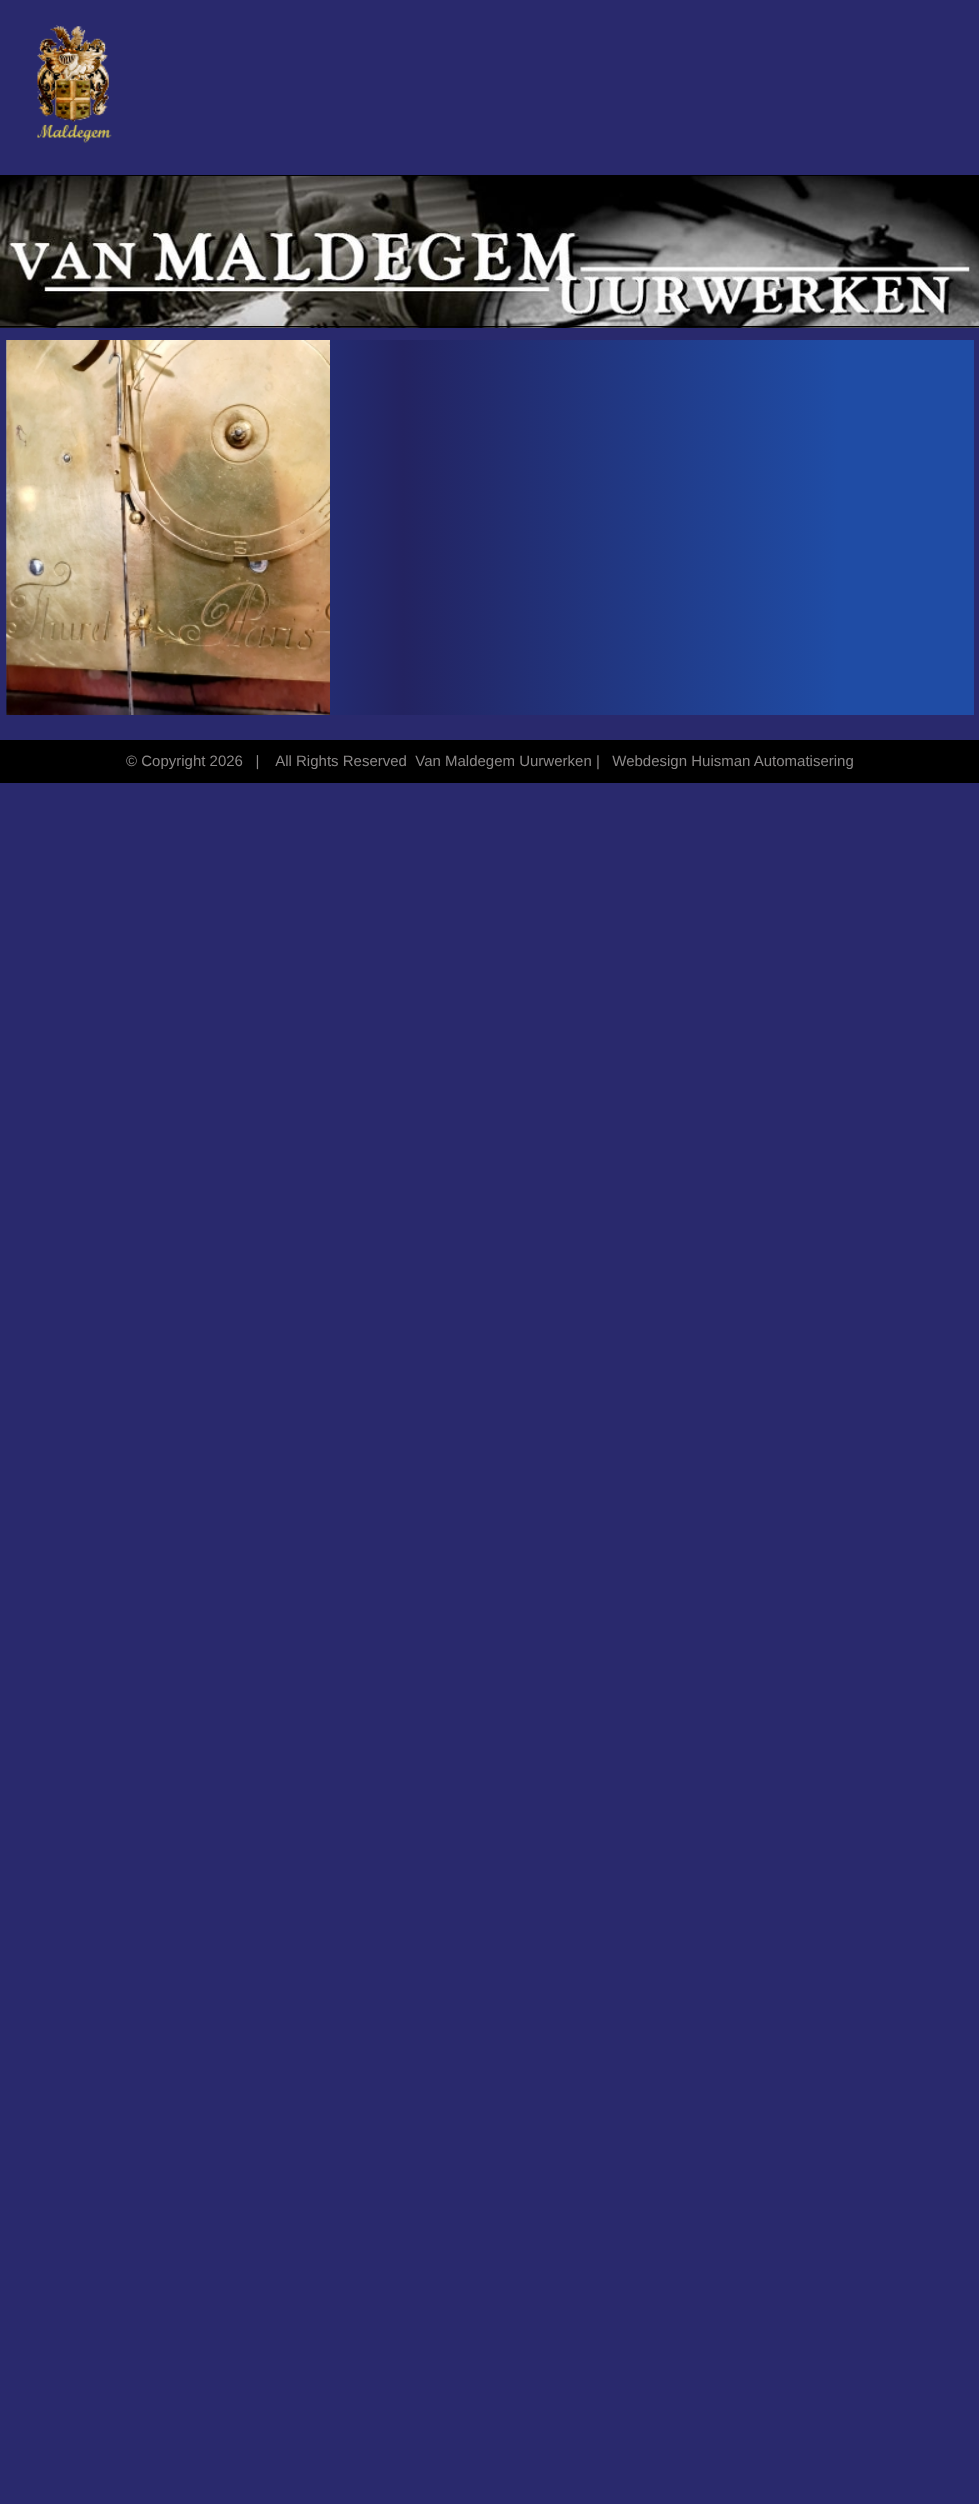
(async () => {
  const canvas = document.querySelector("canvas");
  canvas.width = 979;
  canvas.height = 2504;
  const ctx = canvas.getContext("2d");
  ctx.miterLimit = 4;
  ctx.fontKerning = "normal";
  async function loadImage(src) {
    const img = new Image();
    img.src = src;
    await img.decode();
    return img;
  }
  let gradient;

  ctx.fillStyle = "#29296d";
  ctx.fillRect(0, 0, 979, 2504);
  ctx.drawImage(await loadImage("img/1.png"), 37, 25, 75, 118);
  ctx.fillStyle = "#010103";
  ctx.fillRect(0, 327, 979, 1);
  ctx.drawImage(await loadImage("img/2.png"), 0, 176, 979, 152);
  ctx.fillStyle = "#000000";
  ctx.fillRect(0, 175, 979, 1);
  ctx.fillRect(0, 326, 979, 1);
  gradient = ctx.createLinearGradient(6.2, 528, 974, 528);
  gradient.addColorStop(0, "#2350ba");
  gradient.addColorStop(0.41, "#232361");
  gradient.addColorStop(0.86, "#1f4ca5");
  ctx.fillStyle = gradient;
  ctx.fillRect(6, 340, 968, 375);
  ctx.drawImage(await loadImage("img/3.png"), 6, 340, 324, 375);
  ctx.fillStyle = "#000000";
  ctx.fillRect(0, 740, 979, 43);
  ctx.font = "15px Liberation Sans";
  ctx.fillStyle = "#8c8989";
  ctx.fillText("© Copyright 2026   |    All Rights Reserved  Van Maldegem Uurwerken |   Webdesign Huisman Automatisering", 126, 766);
})();
